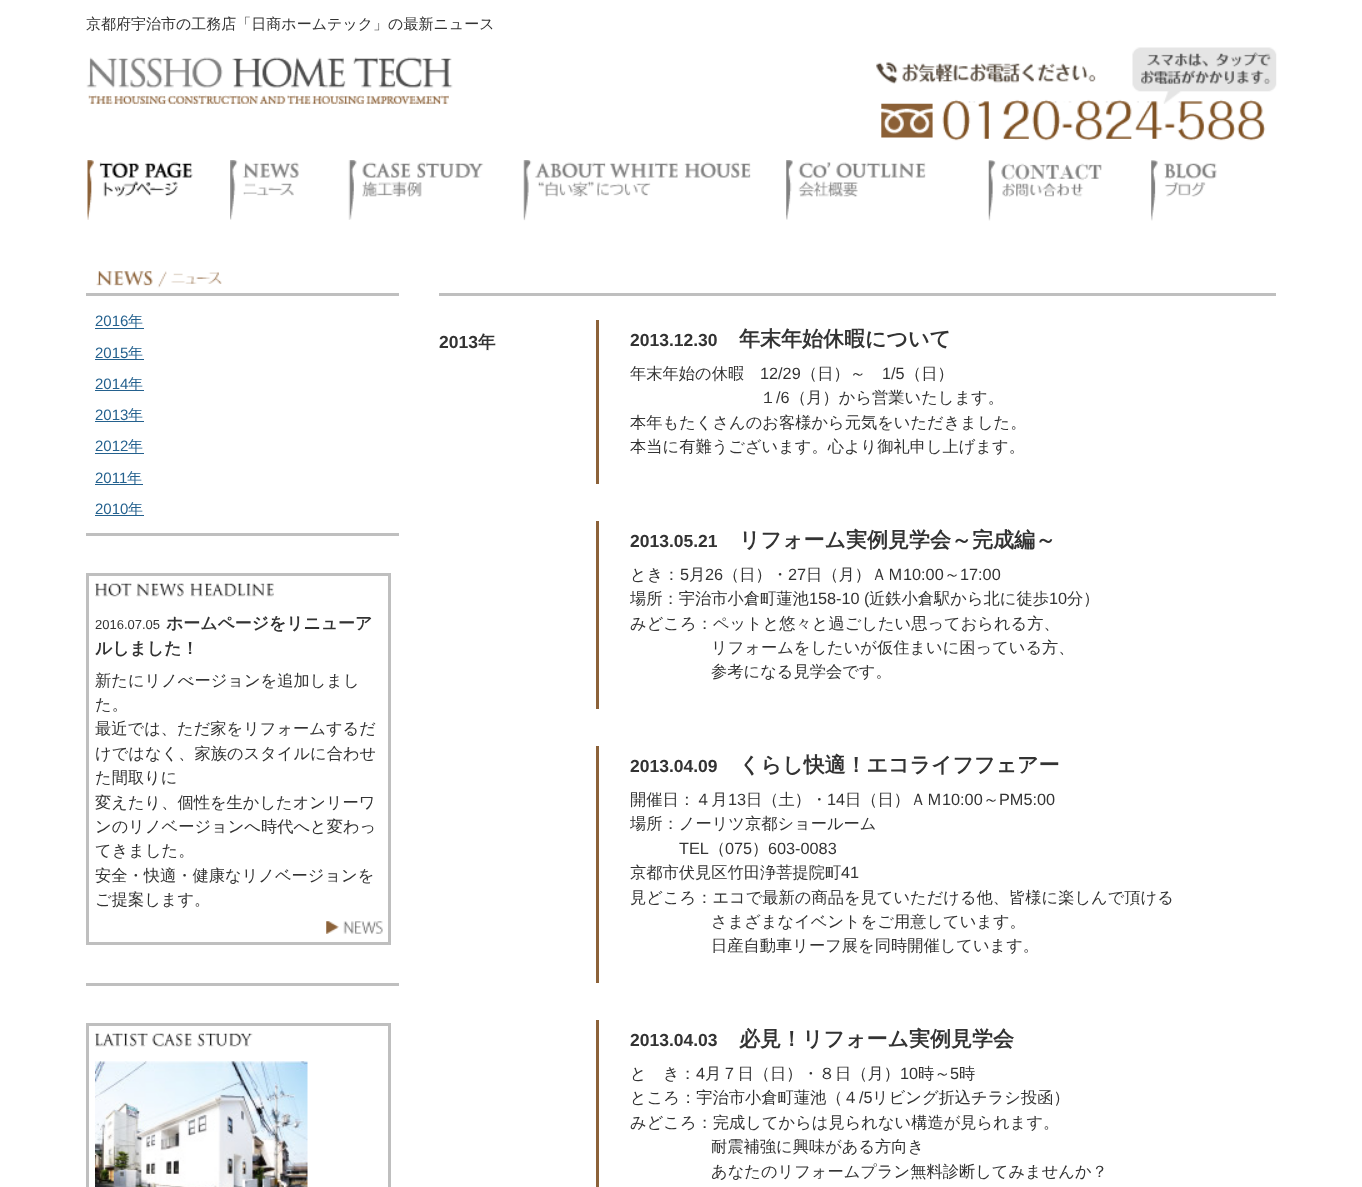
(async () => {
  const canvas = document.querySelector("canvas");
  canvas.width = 1362;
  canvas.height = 1187;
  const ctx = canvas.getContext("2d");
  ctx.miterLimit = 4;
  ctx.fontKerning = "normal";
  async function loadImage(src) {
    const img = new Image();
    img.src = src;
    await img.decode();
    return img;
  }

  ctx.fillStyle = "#ffffff";
  ctx.fillRect(0, 0, 1362, 1187);
  ctx.drawImage(await loadImage("img/1.png"), 86, 57, 367, 48);
  ctx.drawImage(await loadImage("img/2.png"), 876, 47, 401, 94);
  ctx.drawImage(await loadImage("img/3.png"), 87, 160, 106, 60);
  ctx.drawImage(await loadImage("img/4.png"), 230, 160, 69, 60);
  ctx.drawImage(await loadImage("img/5.png"), 348, 160, 136, 60);
  ctx.drawImage(await loadImage("img/6.png"), 523, 160, 228, 61);
  ctx.drawImage(await loadImage("img/7.png"), 786, 160, 140, 60);
  ctx.drawImage(await loadImage("img/8.png"), 988, 160, 114, 61);
  ctx.drawImage(await loadImage("img/9.png"), 1151, 160, 66, 61);
  ctx.drawImage(await loadImage("img/10.png"), 96, 271, 126, 17);
  for (const [x, y, w, h, color] of [
    [86, 293, 313, 3, "#bfbfbf"],
    [86, 533, 313, 3, "#bfbfbf"],
    [95, 328, 49, 1, "#24618e"],
    [95, 359, 49, 1, "#24618e"],
    [95, 390, 49, 1, "#24618e"],
    [95, 421, 49, 1, "#24618e"],
    [95, 453, 49, 1, "#24618e"],
    [95, 484, 48, 1, "#24618e"],
    [95, 515, 49, 1, "#24618e"],
    [86, 983, 313, 3, "#bfbfbf"],
  ]) {
    ctx.fillStyle = color;
    ctx.fillRect(x, y, w, h);
  }
  ctx.strokeStyle = "#bfbfbf";
  ctx.lineWidth = 3;
  ctx.strokeRect(87.5, 574.5, 302, 369);
  ctx.drawImage(await loadImage("img/11.png"), 95, 583, 179, 14);
  ctx.drawImage(await loadImage("img/12.png"), 326, 921, 57, 13);
  ctx.strokeRect(87.5, 1024.5, 302, 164);
  ctx.drawImage(await loadImage("img/13.png"), 95, 1033, 158, 14);
  ctx.drawImage(await loadImage("img/14.png"), 95, 1061, 213, 126);
  for (const [x, y, w, h, color] of [
    [439, 293, 837, 3, "#bfbfbf"],
    [596, 320, 3, 164, "#8c6239"],
    [596, 521, 3, 188, "#8c6239"],
    [596, 746, 3, 237, "#8c6239"],
    [596, 1020, 3, 167, "#8c6239"],
  ]) {
    ctx.fillStyle = color;
    ctx.fillRect(x, y, w, h);
  }
  ctx.font = "500 15px WenQuanYi Zen Hei";
  ctx.fillStyle = "#333333";
  ctx.fillText("京都府宇治市の工務店「日商ホームテック」の最新ニュース", 86, 29);
  ctx.font = "15px Liberation Sans";
  ctx.fillStyle = "#24618e";
  ctx.fillText("2016", 95, 326);
  ctx.font = "500 15px WenQuanYi Zen Hei";
  ctx.fillText("年", 128, 326);
  ctx.font = "15px Liberation Sans";
  ctx.fillText("2015", 95, 358);
  ctx.font = "500 15px WenQuanYi Zen Hei";
  ctx.fillText("年", 128, 358);
  ctx.font = "15px Liberation Sans";
  ctx.fillText("2014", 95, 389);
  ctx.font = "500 15px WenQuanYi Zen Hei";
  ctx.fillText("年", 128, 389);
  ctx.font = "15px Liberation Sans";
  ctx.fillText("2013", 95, 420);
  ctx.font = "500 15px WenQuanYi Zen Hei";
  ctx.fillText("年", 128, 420);
  ctx.font = "15px Liberation Sans";
  ctx.fillText("2012", 95, 451);
  ctx.font = "500 15px WenQuanYi Zen Hei";
  ctx.fillText("年", 128, 451);
  ctx.font = "15px Liberation Sans";
  ctx.fillText("2011", 95, 483);
  ctx.font = "500 15px WenQuanYi Zen Hei";
  ctx.fillText("年", 127, 483);
  ctx.font = "15px Liberation Sans";
  ctx.fillText("2010", 95, 514);
  ctx.font = "500 15px WenQuanYi Zen Hei";
  ctx.fillText("年", 128, 514);
  ctx.font = "13px Liberation Sans";
  ctx.fillStyle = "#333333";
  ctx.fillText("2016.07.05", 95, 629);
  ctx.font = "bold 16.9px WenQuanYi Zen Hei";
  ctx.fillText("ホームページをリニューア", 166, 629);
  ctx.fillText("ルしました！", 95, 654);
  ctx.font = "500 16.25px WenQuanYi Zen Hei";
  for (const [text, x, y] of [
    ["新たにリノべージョンを追加しまし", 95, 686],
    ["た。", 95, 710],
    ["最近では、ただ家をリフォームするだ", 95, 734],
    ["けではなく、家族のスタイルに合わせ", 95, 759],
    ["た間取りに", 95, 783],
    ["変えたり、個性を生かしたオンリーワ", 95, 808],
    ["ンのリノベージョンへ時代へと変わっ", 95, 832],
    ["てきました。", 95, 856],
    ["安全・快適・健康なリノベージョンを", 95, 881],
    ["ご提案します。", 95, 905],
  ]) {
    ctx.fillText(text, x, y);
  }
  ctx.font = "bold 17.5px Liberation Sans";
  ctx.fillText("2013", 439, 348);
  ctx.font = "bold 17.5px WenQuanYi Zen Hei";
  ctx.fillText("年", 478, 348);
  ctx.font = "bold 17.5px Liberation Sans";
  ctx.fillText("2013.12.30", 630, 346);
  ctx.font = "bold 21px WenQuanYi Zen Hei";
  ctx.fillText("年末年始休暇について", 739, 346);
  ctx.font = "500 16.25px WenQuanYi Zen Hei";
  ctx.fillText("年末年始の休暇", 630, 379);
  ctx.font = "16.25px Liberation Sans";
  ctx.fillText("12/29", 760, 379);
  ctx.font = "500 16.25px WenQuanYi Zen Hei";
  ctx.fillText("（日）～", 801, 379);
  ctx.font = "16.25px Liberation Sans";
  ctx.fillText("1/5", 882, 379);
  ctx.font = "500 16.25px WenQuanYi Zen Hei";
  ctx.fillText("（日）", 905, 379);
  ctx.fillText("１", 760, 403);
  ctx.font = "16.25px Liberation Sans";
  ctx.fillText("/6", 776, 403);
  ctx.font = "500 16.25px WenQuanYi Zen Hei";
  for (const [text, x, y] of [
    ["（月）から営業いたします。", 790, 403],
    ["本年もたくさんのお客様から元気をいただきました。", 630, 428],
    ["本当に有難うございます。心より御礼申し上げます。", 630, 452],
  ]) {
    ctx.fillText(text, x, y);
  }
  ctx.font = "bold 17.5px Liberation Sans";
  ctx.fillText("2013.05.21", 630, 547);
  ctx.font = "bold 21px WenQuanYi Zen Hei";
  ctx.fillText("リフォーム実例見学会～完成編～", 739, 547);
  ctx.font = "500 16.25px WenQuanYi Zen Hei";
  ctx.fillText("とき：", 630, 580);
  ctx.font = "16.25px Liberation Sans";
  ctx.fillText("5", 680, 580);
  ctx.font = "500 16.25px WenQuanYi Zen Hei";
  ctx.fillText("月", 689, 580);
  ctx.font = "16.25px Liberation Sans";
  ctx.fillText("26", 705, 580);
  ctx.font = "500 16.25px WenQuanYi Zen Hei";
  ctx.fillText("（日）・", 723, 580);
  ctx.font = "16.25px Liberation Sans";
  ctx.fillText("27", 788, 580);
  ctx.font = "500 16.25px WenQuanYi Zen Hei";
  ctx.fillText("日（月）ＡＭ", 806, 580);
  ctx.font = "16.25px Liberation Sans";
  ctx.fillText("10:00", 903, 580);
  ctx.font = "500 16.25px WenQuanYi Zen Hei";
  ctx.fillText("～", 944, 580);
  ctx.font = "16.25px Liberation Sans";
  ctx.fillText("17:00", 960, 580);
  ctx.font = "500 16.25px WenQuanYi Zen Hei";
  ctx.fillText("場所：宇治市小倉町蓮池", 630, 604);
  ctx.font = "16.25px Liberation Sans";
  ctx.fillText("158-10 (", 809, 604);
  ctx.font = "500 16.25px WenQuanYi Zen Hei";
  ctx.fillText("近鉄小倉駅から北に徒歩", 869, 604);
  ctx.font = "16.25px Liberation Sans";
  ctx.fillText("10", 1049, 604);
  ctx.font = "500 16.25px WenQuanYi Zen Hei";
  for (const [text, x, y] of [
    ["分）", 1067, 604],
    ["みどころ：ペットと悠々と過ごしたい思っておられる方、", 630, 629],
    ["リフォームをしたいが仮住まいに困っている方、", 711, 653],
    ["参考になる見学会です。", 711, 677],
  ]) {
    ctx.fillText(text, x, y);
  }
  ctx.font = "bold 17.5px Liberation Sans";
  ctx.fillText("2013.04.09", 630, 772);
  ctx.font = "bold 21px WenQuanYi Zen Hei";
  ctx.fillText("くらし快適！エコライフフェアー", 739, 772);
  ctx.font = "500 16.25px WenQuanYi Zen Hei";
  ctx.fillText("開催日：４月", 630, 805);
  ctx.font = "16.25px Liberation Sans";
  ctx.fillText("13", 728, 805);
  ctx.font = "500 16.25px WenQuanYi Zen Hei";
  ctx.fillText("日（土）・", 746, 805);
  ctx.font = "16.25px Liberation Sans";
  ctx.fillText("14", 827, 805);
  ctx.font = "500 16.25px WenQuanYi Zen Hei";
  ctx.fillText("日（日）ＡＭ", 845, 805);
  ctx.font = "16.25px Liberation Sans";
  ctx.fillText("10:00", 942, 805);
  ctx.font = "500 16.25px WenQuanYi Zen Hei";
  ctx.fillText("～", 983, 805);
  ctx.font = "16.25px Liberation Sans";
  ctx.fillText("PM5:00", 999, 805);
  ctx.font = "500 16.25px WenQuanYi Zen Hei";
  ctx.fillText("場所：ノーリツ京都ショールーム", 630, 829);
  ctx.font = "16.25px Liberation Sans";
  ctx.fillText("TEL", 679, 854);
  ctx.font = "500 16.25px WenQuanYi Zen Hei";
  ctx.fillText("（", 709, 854);
  ctx.font = "16.25px Liberation Sans";
  ctx.fillText("075", 725, 854);
  ctx.font = "500 16.25px WenQuanYi Zen Hei";
  ctx.fillText("）", 752, 854);
  ctx.font = "16.25px Liberation Sans";
  ctx.fillText("603-0083", 768, 854);
  ctx.font = "500 16.25px WenQuanYi Zen Hei";
  ctx.fillText("京都市伏見区竹田浄菩提院町", 630, 878);
  ctx.font = "16.25px Liberation Sans";
  ctx.fillText("41", 841, 878);
  ctx.font = "500 16.25px WenQuanYi Zen Hei";
  for (const [text, x, y] of [
    ["見どころ：エコで最新の商品を見ていただける他、皆様に楽しんで頂ける", 630, 903],
    ["さまざまなイベントをご用意しています。", 711, 927],
    ["日産自動車リーフ展を同時開催しています。", 711, 951],
  ]) {
    ctx.fillText(text, x, y);
  }
  ctx.font = "bold 17.5px Liberation Sans";
  ctx.fillText("2013.04.03", 630, 1046);
  ctx.font = "bold 21px WenQuanYi Zen Hei";
  ctx.fillText("必見！リフォーム実例見学会", 739, 1046);
  ctx.font = "500 16.25px WenQuanYi Zen Hei";
  ctx.fillText("と　き：", 630, 1079);
  ctx.font = "16.25px Liberation Sans";
  ctx.fillText("4", 696, 1079);
  ctx.font = "500 16.25px WenQuanYi Zen Hei";
  ctx.fillText("月７日（日）・８日（月）", 705, 1079);
  ctx.font = "16.25px Liberation Sans";
  ctx.fillText("10", 900, 1079);
  ctx.font = "500 16.25px WenQuanYi Zen Hei";
  ctx.fillText("時～", 918, 1079);
  ctx.font = "16.25px Liberation Sans";
  ctx.fillText("5", 950, 1079);
  ctx.font = "500 16.25px WenQuanYi Zen Hei";
  ctx.fillText("時", 959, 1079);
  ctx.fillText("ところ：宇治市小倉町蓮池（４", 630, 1103);
  ctx.font = "16.25px Liberation Sans";
  ctx.fillText("/5", 859, 1103);
  ctx.font = "500 16.25px WenQuanYi Zen Hei";
  for (const [text, x, y] of [
    ["リビング折込チラシ投函）", 872, 1103],
    ["みどころ：完成してからは見られない構造が見られます。", 630, 1128],
    ["耐震補強に興味がある方向き", 711, 1152],
    ["あなたのリフォームプラン無料診断してみませんか？", 711, 1177],
  ]) {
    ctx.fillText(text, x, y);
  }
})();
